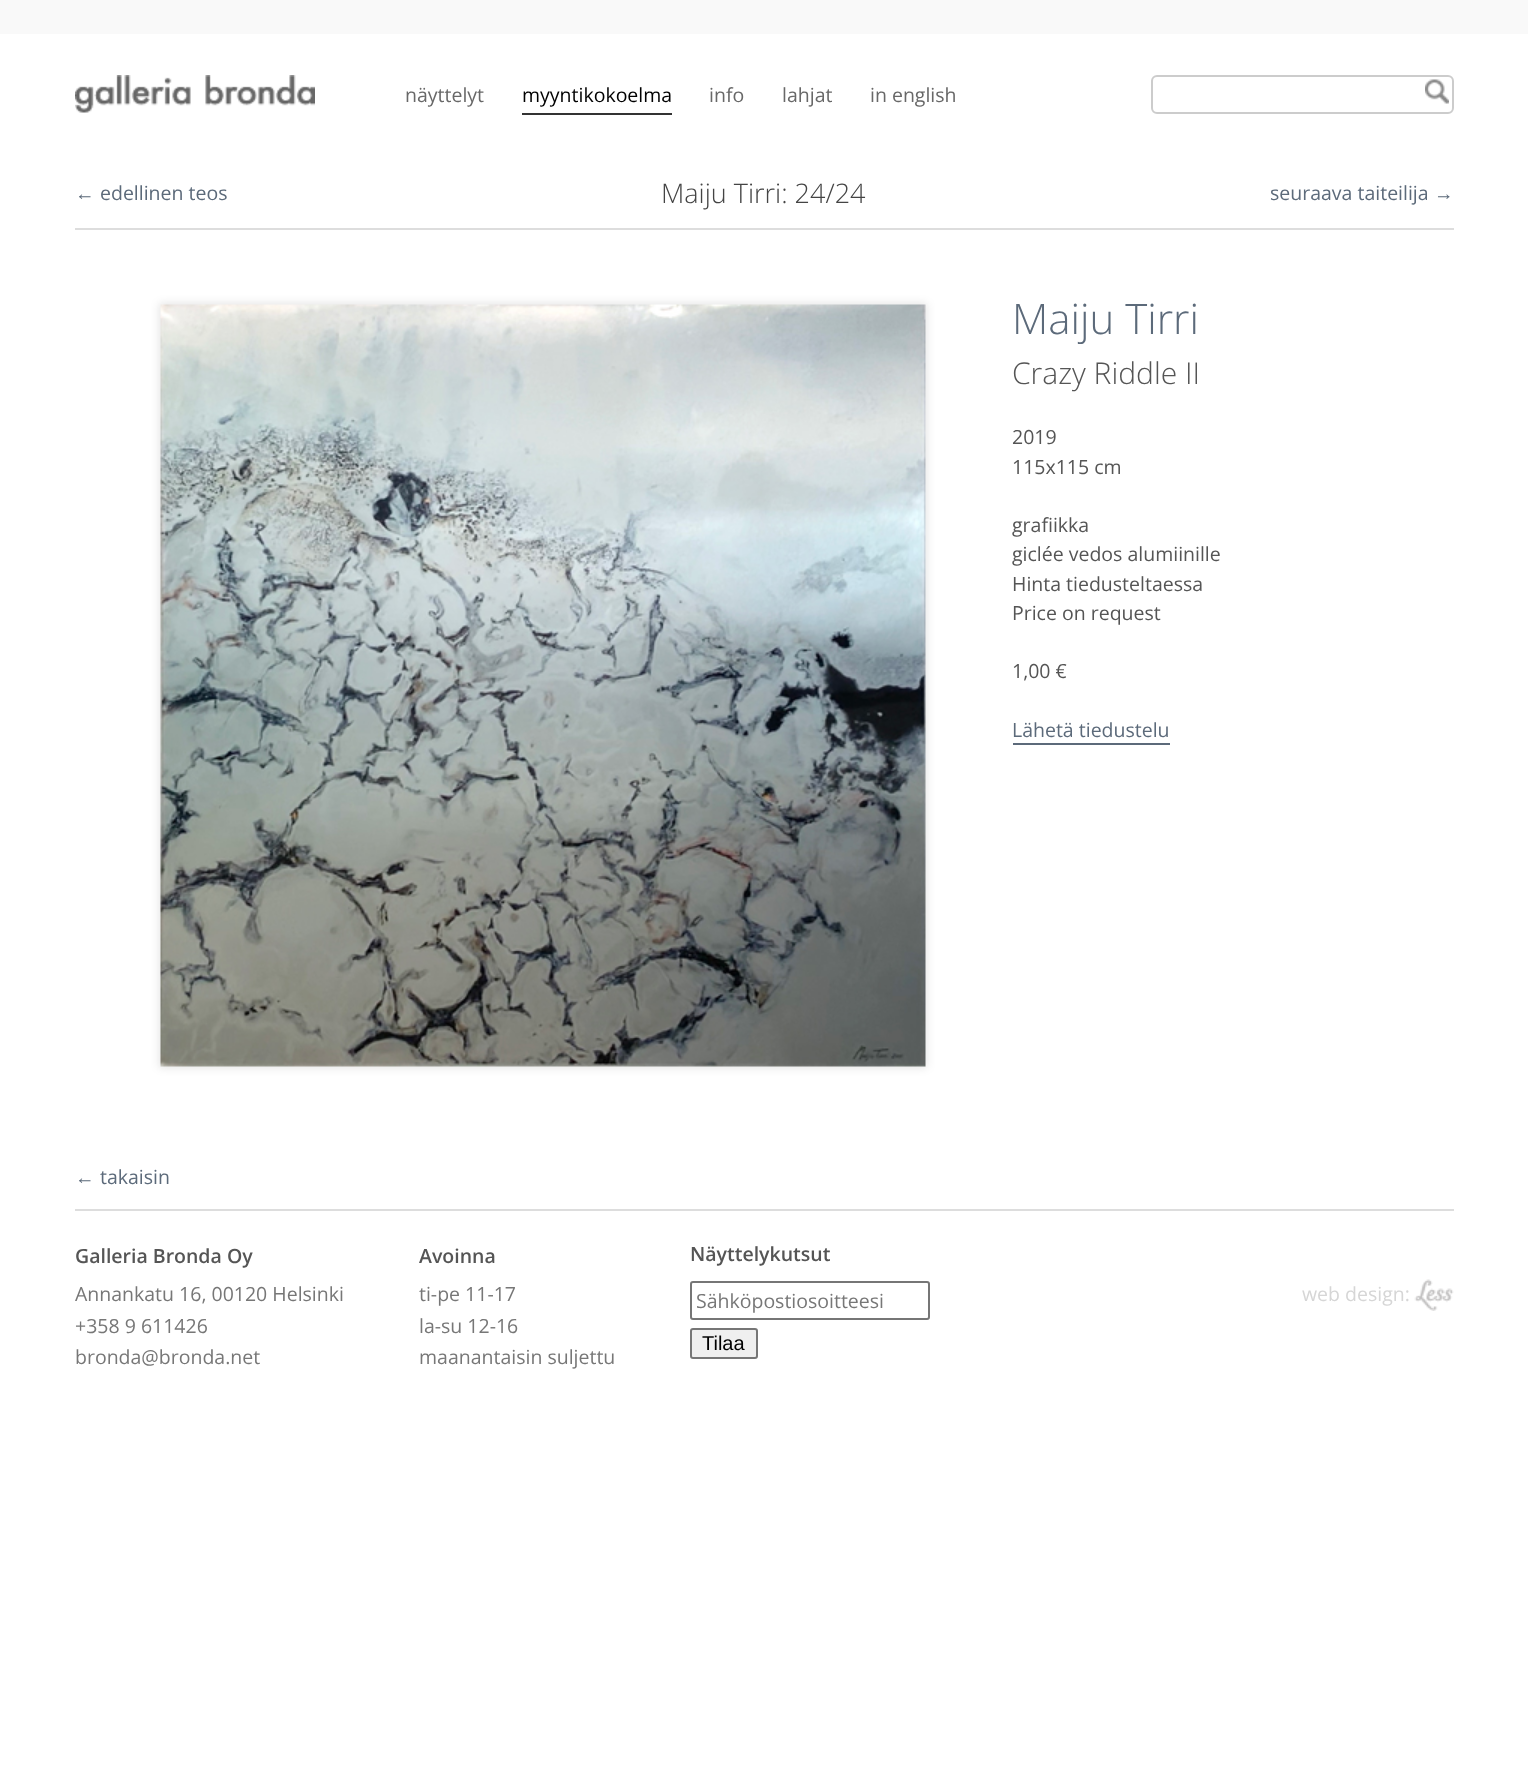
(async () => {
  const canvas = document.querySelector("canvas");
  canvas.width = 1528;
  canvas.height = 1765;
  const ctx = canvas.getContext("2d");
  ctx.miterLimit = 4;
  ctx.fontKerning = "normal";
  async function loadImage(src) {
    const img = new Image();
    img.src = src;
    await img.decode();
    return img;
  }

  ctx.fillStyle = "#ffffff";
  ctx.fillRect(0, 0, 1528, 1765);
  ctx.fillStyle = "#f9f9f9";
  ctx.fillRect(0, 0, 1528, 34);
  ctx.drawImage(await loadImage("img/1.png"), 75, 75, 240, 38);
  ctx.fillStyle = "#333333";
  ctx.fillRect(522, 113, 150, 2);
  ctx.beginPath();
  ctx.roundRect(1152, 76, 301, 37, 5);
  ctx.strokeStyle = "#cccccc";
  ctx.lineWidth = 2;
  ctx.stroke();
  ctx.drawImage(await loadImage("img/2.png"), 1425, 79, 24, 25);
  ctx.fillStyle = "#dddddd";
  ctx.fillRect(75, 228, 1379, 2);
  ctx.fillStyle = "rgba(0, 0, 0, 0.1)";
  ctx.filter = "blur(4px)";
  ctx.beginPath();
  ctx.rect(159, 303, 768, 765);
  ctx.fill();
  ctx.filter = "none";
  ctx.fillStyle = "#f0f0f0";
  ctx.fillRect(161, 305, 765, 762);
  ctx.drawImage(await loadImage("img/3.png"), 160, 304, 766, 763);
  ctx.fillStyle = "#5c6a7a";
  ctx.fillRect(1013, 743, 157, 2);
  ctx.fillStyle = "#dddddd";
  ctx.fillRect(75, 1209, 1379, 2);
  ctx.beginPath();
  ctx.roundRect(691, 1282, 238, 37, 2);
  ctx.strokeStyle = "#767676";
  ctx.stroke();
  ctx.fillStyle = "#efefef";
  ctx.beginPath();
  ctx.roundRect(691, 1329, 66, 29, 2);
  ctx.fill();
  ctx.stroke();
  ctx.drawImage(await loadImage("img/4.png"), 1414, 1279, 40, 32);
  ctx.font = "19.5px Open Sans";
  ctx.fillStyle = "#686868";
  ctx.fillText("näyttelyt", 405, 102);
  ctx.fillStyle = "#000000";
  ctx.fillText("myyntikokoelma", 522, 102);
  ctx.fillStyle = "#686868";
  for (const [text, x, y] of [
    ["info", 709, 102],
    ["lahjat", 782, 102],
    ["in english", 870, 102],
  ]) {
    ctx.fillText(text, x, y);
  }
  ctx.font = "19.5px Liberation Sans";
  ctx.fillStyle = "#5c6a7a";
  ctx.fillText("←", 75, 200);
  ctx.font = "19.5px Open Sans";
  ctx.fillText("edellinen teos", 100, 200);
  ctx.font = "300 27px Open Sans";
  ctx.fillStyle = "#444444";
  ctx.fillText("Maiju Tirri: 24/24", 661, 203);
  ctx.font = "19.5px Open Sans";
  ctx.fillStyle = "#5c6a7a";
  ctx.fillText("seuraava taiteilija", 1270, 200);
  ctx.font = "19.5px Liberation Sans";
  ctx.fillText("→", 1434, 200);
  ctx.font = "300 42px Open Sans";
  ctx.fillText("Maiju Tirri", 1012, 334);
  ctx.font = "300 30px Open Sans";
  ctx.fillStyle = "#555555";
  ctx.fillText("Crazy Riddle II", 1012, 384);
  ctx.font = "19.5px Open Sans";
  for (const [text, x, y] of [
    ["2019", 1012, 444],
    ["115x115 cm", 1012, 474],
    ["grafiikka", 1012, 532],
    ["giclée vedos alumiinille", 1012, 561],
    ["Hinta tiedusteltaessa", 1012, 591],
    ["Price on request", 1012, 620],
    ["1,00 €", 1012, 678],
  ]) {
    ctx.fillText(text, x, y);
  }
  ctx.fillStyle = "#5c6a7a";
  ctx.fillText("Lähetä tiedustelu", 1012, 737);
  ctx.font = "19.5px Liberation Sans";
  ctx.fillText("←", 75, 1184);
  ctx.font = "19.5px Open Sans";
  ctx.fillText("takaisin", 100, 1184);
  ctx.font = "600 19.5px Open Sans";
  ctx.fillStyle = "#555555";
  ctx.fillText("Galleria Bronda Oy", 75, 1263);
  ctx.font = "19.5px Open Sans";
  ctx.fillStyle = "#777777";
  for (const [text, x, y] of [
    ["Annankatu 16, 00120 Helsinki", 75, 1301],
    ["+358 9 611426", 75, 1333],
    ["bronda@bronda.net", 75, 1364],
  ]) {
    ctx.fillText(text, x, y);
  }
  ctx.font = "600 19.5px Open Sans";
  ctx.fillStyle = "#555555";
  ctx.fillText("Avoinna", 419, 1263);
  ctx.font = "19.5px Open Sans";
  ctx.fillStyle = "#777777";
  for (const [text, x, y] of [
    ["ti-pe 11-17", 419, 1301],
    ["la-su 12-16", 419, 1333],
    ["maanantaisin suljettu", 419, 1364],
  ]) {
    ctx.fillText(text, x, y);
  }
  ctx.font = "600 19.5px Open Sans";
  ctx.fillStyle = "#555555";
  ctx.fillText("Näyttelykutsut", 690, 1261);
  ctx.font = "19.5px Open Sans";
  ctx.fillStyle = "#777777";
  ctx.fillText("Sähköpostiosoitteesi", 696, 1308);
  ctx.font = "20px Liberation Sans";
  ctx.fillStyle = "#000000";
  ctx.fillText("Tilaa", 702, 1350);
  ctx.font = "19.5px Open Sans";
  ctx.fillStyle = "#d6d6d6";
  ctx.fillText("web design:", 1302, 1301);
})();
